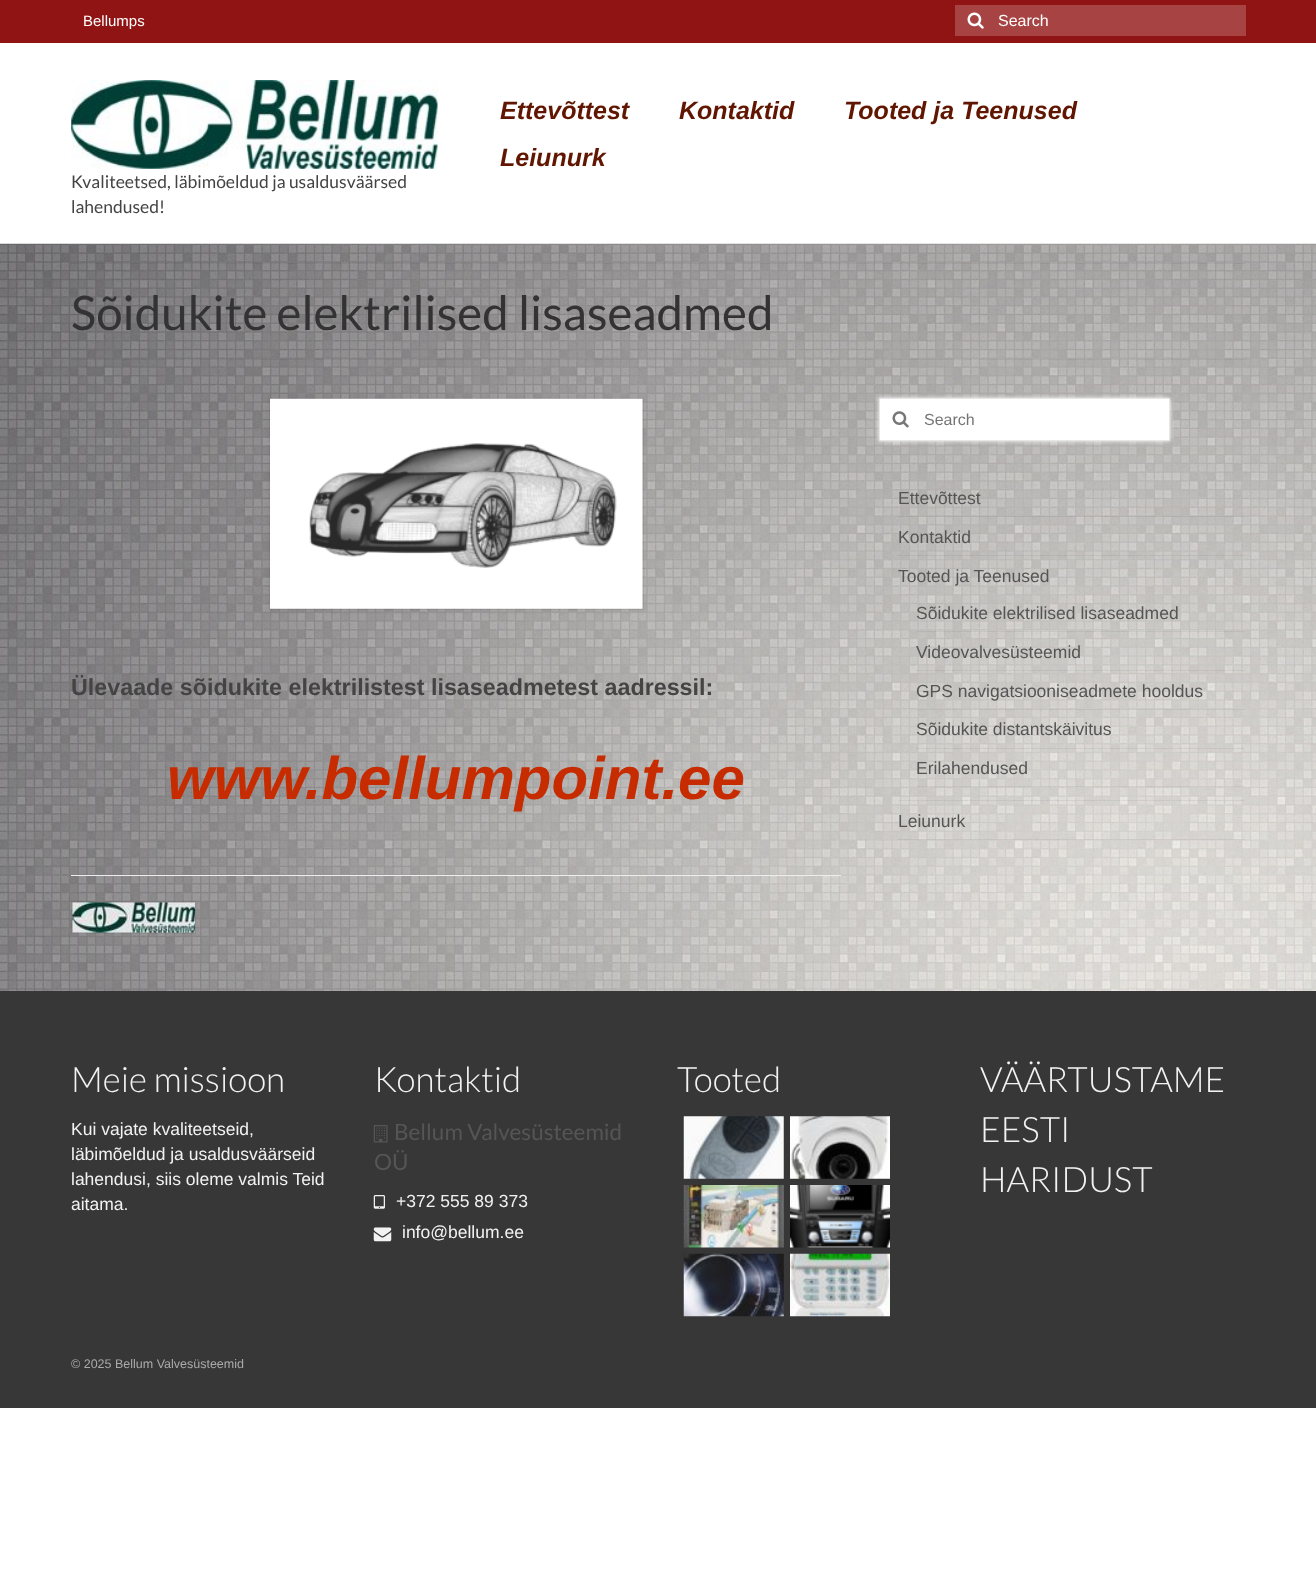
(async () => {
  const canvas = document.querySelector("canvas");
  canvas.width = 1316;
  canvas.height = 1592;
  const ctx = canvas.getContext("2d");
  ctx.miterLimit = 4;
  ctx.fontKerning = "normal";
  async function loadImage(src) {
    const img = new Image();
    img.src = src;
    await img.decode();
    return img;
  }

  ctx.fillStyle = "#ffffff";
  ctx.fillRect(0, 0, 1316, 1592);
  ctx.fillStyle = "#911414";
  ctx.fillRect(0, 0, 1316, 43);
  ctx.fillStyle = "#a74343";
  ctx.fillRect(955, 5, 291, 31);
  ctx.drawImage(await loadImage("img/1.png"), 967, 12, 17, 17);
  ctx.drawImage(await loadImage("img/2.png"), 71, 80, 367, 89);
  ctx.drawImage(await loadImage("img/3.png"), 0, 243, 1316, 748);
  ctx.fillStyle = "rgba(0, 0, 0, 0.05)";
  ctx.fillRect(71, 263, 1175, 1);
  ctx.fillRect(71, 359, 1175, 1);
  ctx.fillStyle = "rgba(0, 0, 0, 0.06)";
  ctx.filter = "blur(2px)";
  ctx.beginPath();
  ctx.rect(269, 399, 375, 212);
  ctx.fill();
  ctx.filter = "none";
  ctx.strokeStyle = "rgba(0, 0, 0, 0.05)";
  ctx.strokeRect(269.5, 398.5, 374, 211);
  ctx.drawImage(await loadImage("img/4.png"), 270, 398, 373, 211);
  ctx.fillStyle = "#eeeeee";
  ctx.fillRect(71, 875, 770, 1);
  ctx.strokeRect(71.5, 901.5, 124, 32);
  ctx.drawImage(await loadImage("img/5.png"), 72, 902, 123, 31);
  ctx.fillStyle = "#ffffff";
  ctx.filter = "blur(2px)";
  ctx.beginPath();
  ctx.rect(879, 398, 291, 43);
  ctx.fill();
  ctx.filter = "none";
  ctx.beginPath();
  ctx.rect(879.5, 398.5, 290, 42);
  ctx.fill();
  ctx.strokeStyle = "#e7e7e7";
  ctx.stroke();
  ctx.drawImage(await loadImage("img/6.png"), 892, 411, 17, 17);
  for (const [x, y, w, h, color] of [
    [898, 516, 347, 1, "rgba(0, 0, 0, 0.05)"],
    [898, 555, 347, 1, "rgba(0, 0, 0, 0.05)"],
    [898, 800, 347, 1, "rgba(0, 0, 0, 0.05)"],
    [916, 631, 329, 1, "rgba(0, 0, 0, 0.05)"],
    [916, 670, 329, 1, "rgba(0, 0, 0, 0.05)"],
    [916, 709, 329, 1, "rgba(0, 0, 0, 0.05)"],
    [916, 748, 329, 1, "rgba(0, 0, 0, 0.05)"],
    [916, 786, 329, 1, "rgba(0, 0, 0, 0.05)"],
    [898, 839, 347, 1, "rgba(0, 0, 0, 0.05)"],
    [0, 991, 1316, 417, "#373737"],
  ]) {
    ctx.fillStyle = color;
    ctx.fillRect(x, y, w, h);
  }
  ctx.drawImage(await loadImage("img/7.png"), 373, 1125, 15, 18);
  ctx.drawImage(await loadImage("img/8.png"), 373, 1195, 12, 14);
  ctx.drawImage(await loadImage("img/9.png"), 373, 1227, 19, 15);
  ctx.drawImage(await loadImage("img/10.png"), 683, 1116, 101, 63);
  ctx.drawImage(await loadImage("img/11.png"), 790, 1116, 100, 63);
  ctx.drawImage(await loadImage("img/12.png"), 683, 1185, 101, 63);
  ctx.drawImage(await loadImage("img/13.png"), 790, 1185, 100, 63);
  ctx.drawImage(await loadImage("img/14.png"), 683, 1253, 101, 64);
  ctx.drawImage(await loadImage("img/15.png"), 790, 1253, 100, 64);
  ctx.font = "15px Liberation Sans";
  ctx.fillStyle = "#ffffff";
  ctx.fillText("Bellumps", 83, 26);
  ctx.font = "16px Liberation Sans";
  ctx.fillText("Search", 998, 26);
  ctx.font = "italic bold 25px Liberation Sans";
  ctx.fillStyle = "#601600";
  for (const [text, x, y] of [
    ["Ettevõttest", 500, 119],
    ["Kontaktid", 679, 119],
    ["Tooted ja Teenused", 844, 119],
    ["Leiunurk", 500, 166],
  ]) {
    ctx.fillText(text, x, y);
  }
  ctx.font = "17.5px Lato";
  ctx.fillStyle = "#444444";
  ctx.fillText("Kvaliteetsed, läbimõeldud ja usaldusväärsed", 71, 188);
  ctx.fillText("lahendused!", 71, 213);
  ctx.font = "47.5px Lato";
  ctx.fillStyle = "#333333";
  ctx.fillText("Sõidukite elektrilised lisaseadmed", 71, 330);
  ctx.font = "bold 23.3px Liberation Sans";
  ctx.fillStyle = "#444444";
  ctx.fillText("Ülevaade sõidukite elektrilistest lisaseadmetest aadressil:", 71, 695);
  ctx.font = "italic bold 60px Liberation Sans";
  ctx.fillStyle = "#c72c00";
  ctx.fillText("www.bellumpoint.ee", 167, 799);
  ctx.font = "16px Liberation Sans";
  ctx.fillStyle = "#757575";
  ctx.fillText("Search", 924, 425);
  ctx.font = "17.5px Liberation Sans";
  ctx.fillStyle = "#555555";
  for (const [text, x, y] of [
    ["Ettevõttest", 898, 504],
    ["Kontaktid", 898, 543],
    ["Tooted ja Teenused", 898, 582],
    ["Sõidukite elektrilised lisaseadmed", 916, 619],
    ["Videovalvesüsteemid", 916, 658],
    ["GPS navigatsiooniseadmete hooldus", 916, 697],
    ["Sõidukite distantskäivitus", 916, 735],
    ["Erilahendused", 916, 774],
    ["Leiunurk", 898, 827],
  ]) {
    ctx.fillText(text, x, y);
  }
  ctx.font = "300 35px Lato";
  ctx.fillStyle = "#f2f2f2";
  ctx.fillText("Meie missioon", 71, 1092);
  ctx.font = "17.5px Liberation Sans";
  for (const [text, x, y] of [
    ["Kui vajate kvaliteetseid,", 71, 1135],
    ["läbimõeldud ja usaldusväärseid", 71, 1160],
    ["lahendusi, siis oleme valmis Teid", 71, 1185],
    ["aitama.", 71, 1210],
  ]) {
    ctx.fillText(text, x, y);
  }
  ctx.font = "300 35px Lato";
  ctx.fillText("Kontaktid", 374, 1092);
  ctx.font = "22.5px Lato";
  ctx.fillStyle = "#555555";
  ctx.fillText("Bellum Valvesüsteemid", 394, 1140);
  ctx.fillText("OÜ", 374, 1170);
  ctx.font = "17.5px Liberation Sans";
  ctx.fillStyle = "#f2f2f2";
  ctx.fillText("+372 555 89 373", 396, 1207);
  ctx.fillText("info@bellum.ee", 402, 1238);
  ctx.font = "300 35px Lato";
  for (const [text, x, y] of [
    ["Tooted", 677, 1092],
    ["VÄÄRTUSTAME", 980, 1092],
    ["EESTI", 980, 1142],
    ["HARIDUST", 980, 1192],
  ]) {
    ctx.fillText(text, x, y);
  }
  ctx.font = "12.5px Liberation Sans";
  ctx.fillStyle = "#aaaaaa";
  ctx.fillText("© 2025 Bellum Valvesüsteemid", 71, 1368);
})();
